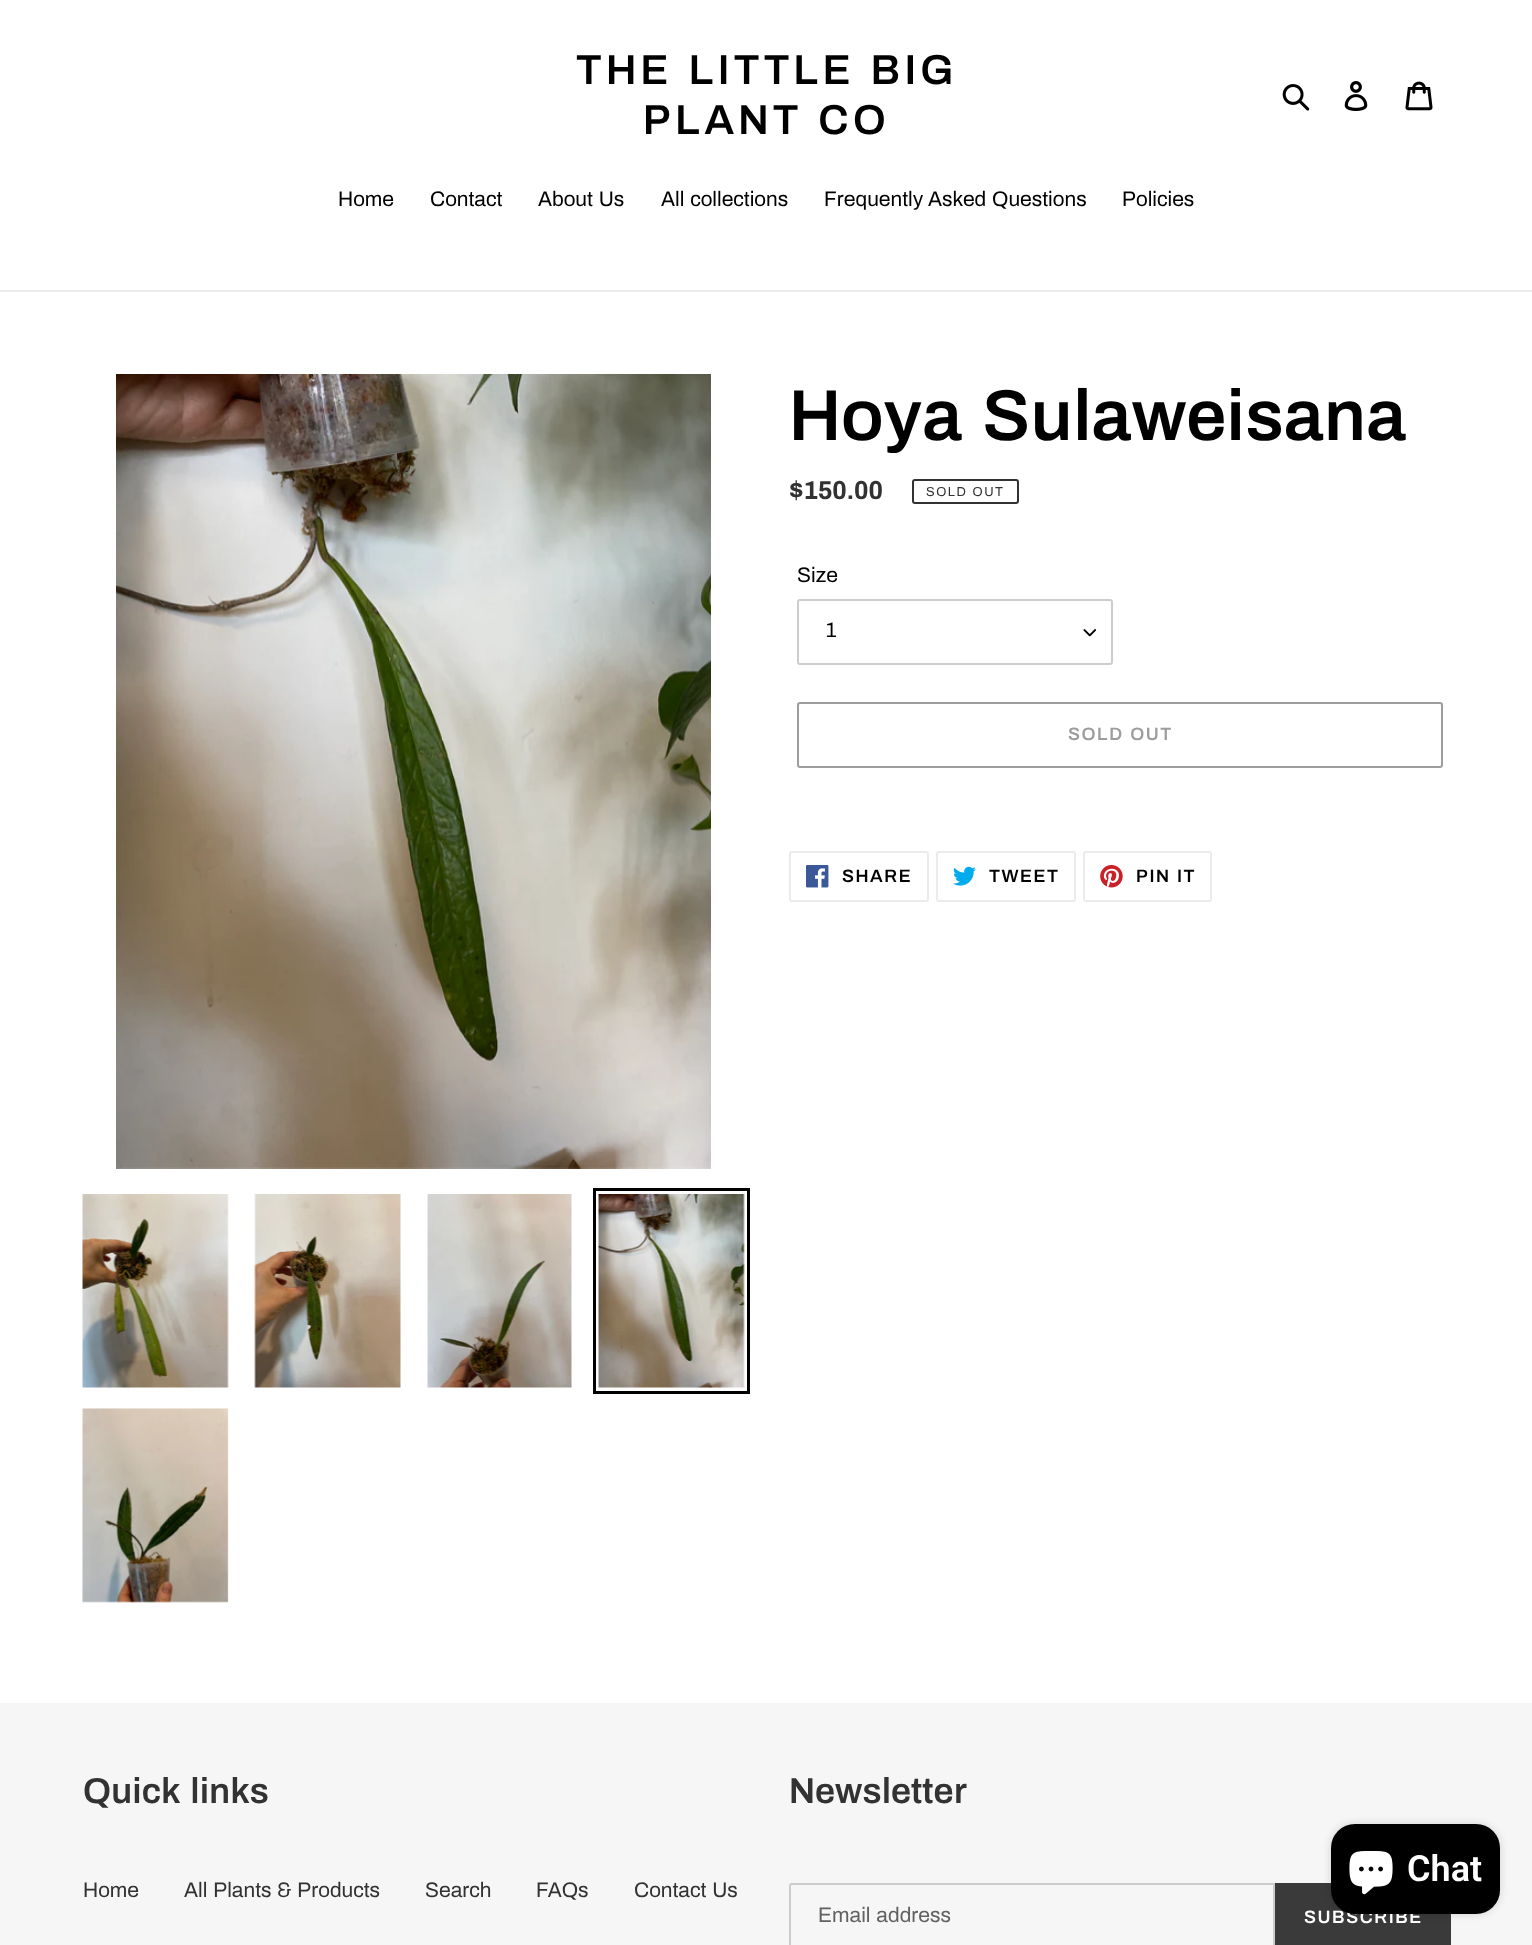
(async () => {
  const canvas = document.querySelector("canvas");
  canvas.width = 1532;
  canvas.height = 1945;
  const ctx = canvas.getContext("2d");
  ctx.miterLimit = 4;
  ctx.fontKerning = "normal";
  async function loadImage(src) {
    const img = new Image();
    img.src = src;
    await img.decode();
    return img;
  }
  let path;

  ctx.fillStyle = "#ffffff";
  ctx.fillRect(0, 0, 1532, 1945);
  ctx.drawImage(await loadImage("img/1.png"), 1282, 84, 28, 27);
  ctx.drawImage(await loadImage("img/2.png"), 1344, 81, 24, 30);
  ctx.drawImage(await loadImage("img/3.png"), 1405, 81, 28, 30);
  ctx.fillStyle = "#ebebeb";
  ctx.fillRect(0, 290, 1532, 2);
  ctx.drawImage(await loadImage("img/4.png"), 116, 374, 595, 795);
  ctx.drawImage(await loadImage("img/5.png"), 82, 1194, 147, 194);
  ctx.drawImage(await loadImage("img/6.png"), 254, 1194, 147, 194);
  ctx.drawImage(await loadImage("img/7.png"), 427, 1194, 145, 194);
  ctx.strokeStyle = "#000000";
  ctx.lineWidth = 3;
  ctx.strokeRect(594.5, 1189.5, 154, 203);
  ctx.drawImage(await loadImage("img/8.png"), 598, 1194, 147, 194);
  ctx.drawImage(await loadImage("img/9.png"), 82, 1408, 147, 195);
  ctx.beginPath();
  ctx.roundRect(913, 480, 105, 23, 2);
  ctx.strokeStyle = "#333232";
  ctx.lineWidth = 2;
  ctx.stroke();
  ctx.drawImage(await loadImage("img/10.png"), 1083, 629, 13, 8);
  ctx.beginPath();
  ctx.roundRect(798, 600, 314, 64, 2);
  ctx.strokeStyle = "#cccccc";
  ctx.stroke();
  ctx.beginPath();
  ctx.roundRect(798, 703, 644, 64, 2);
  ctx.strokeStyle = "#9d9d9d";
  ctx.stroke();
  ctx.beginPath();
  ctx.roundRect(790, 852, 138, 49, 2);
  ctx.strokeStyle = "#ebebeb";
  ctx.stroke();
  ctx.drawImage(await loadImage("img/11.png"), 806, 865, 23, 23);
  ctx.beginPath();
  ctx.roundRect(937, 852, 138, 49, 2);
  ctx.stroke();
  ctx.drawImage(await loadImage("img/12.png"), 953, 866, 23, 20);
  ctx.beginPath();
  ctx.roundRect(1084, 852, 127, 49, 2);
  ctx.stroke();
  ctx.drawImage(await loadImage("img/13.png"), 1100, 865, 23, 23);
  ctx.fillStyle = "#f6f6f6";
  ctx.fillRect(0, 1703, 1532, 242);
  path = new Path2D("M792 1884H1274V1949H792C791 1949 790 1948 790 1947V1886C790 1885 791 1884 792 1884Z");
  ctx.strokeStyle = "#cccccc";
  ctx.stroke(path);
  ctx.fillStyle = "#3a3a3a";
  ctx.fillRect(1275, 1883, 176, 62);
  ctx.fillStyle = "rgba(0, 0, 0, 0.15)";
  ctx.filter = "blur(4px)";
  ctx.beginPath();
  ctx.roundRect(1331, 1824, 169, 90, 24);
  ctx.fill();
  ctx.filter = "none";
  ctx.letterSpacing = "4.25px";
  ctx.font = "600 42px Archivo";
  ctx.fillStyle = "#000000";
  ctx.fillText("THE LITTLE BIG", 576, 84);
  ctx.fillText("PLANT CO", 643, 134);
  ctx.letterSpacing = "0px";
  ctx.font = "21px Archivo";
  for (const [text, x, y] of [
    ["Home", 338, 206],
    ["Contact", 430, 206],
    ["About Us", 538, 206],
    ["All collections", 661, 206],
    ["Frequently Asked Questions", 824, 206],
    ["Policies", 1122, 206],
  ]) {
    ctx.fillText(text, x, y);
  }
  ctx.font = "600 72px Archivo";
  ctx.fillText("Hoya Sulaweisana", 789, 440);
  ctx.font = "bold 26px Archivo";
  ctx.fillStyle = "#333232";
  ctx.fillText("$150.00", 789, 499);
  ctx.letterSpacing = "1.5px";
  ctx.font = "13px Archivo";
  ctx.fillText("SOLD OUT", 926, 496);
  ctx.letterSpacing = "0px";
  ctx.font = "21px Archivo";
  ctx.fillStyle = "#000000";
  ctx.fillText("Size", 797, 582);
  ctx.fillText("1", 825, 637);
  ctx.letterSpacing = "1.5px";
  ctx.font = "600 18px Archivo";
  ctx.fillStyle = "#9d9d9d";
  ctx.fillText("SOLD OUT", 1068, 740);
  ctx.fillStyle = "#000000";
  for (const [text, x, y] of [
    ["SHARE", 842, 882],
    ["TWEET", 989, 882],
    ["PIN IT", 1136, 882],
  ]) {
    ctx.fillText(text, x, y);
  }
  ctx.letterSpacing = "0px";
  ctx.font = "600 36px Archivo";
  ctx.fillStyle = "#333232";
  ctx.fillText("Quick links", 83, 1803);
  ctx.font = "21px Archivo";
  for (const [text, x, y] of [
    ["Home", 83, 1897],
    ["All Plants & Products", 184, 1897],
    ["Search", 425, 1897],
    ["FAQs", 536, 1897],
    ["Contact Us", 634, 1897],
  ]) {
    ctx.fillText(text, x, y);
  }
  ctx.font = "600 36px Archivo";
  ctx.fillText("Newsletter", 789, 1803);
  ctx.font = "21px Archivo";
  ctx.fillStyle = "#626262";
  ctx.fillText("Email address", 818, 1922);
  ctx.letterSpacing = "1.5px";
  ctx.font = "600 18px Archivo";
  ctx.fillStyle = "#ffffff";
  ctx.fillText("SUBSCRIBE", 1304, 1923);
  ctx.fillStyle = "#000000";
  ctx.beginPath();
  ctx.roundRect(1331, 1824, 169, 90, 24);
  ctx.fill();
  ctx.drawImage(await loadImage("img/14.png"), 1349, 1851, 44, 44);
  ctx.letterSpacing = "0px";
  ctx.font = "600 36px Roboto";
  ctx.fillStyle = "#ffffff";
  ctx.fillText("Chat", 1407, 1881);
})();
